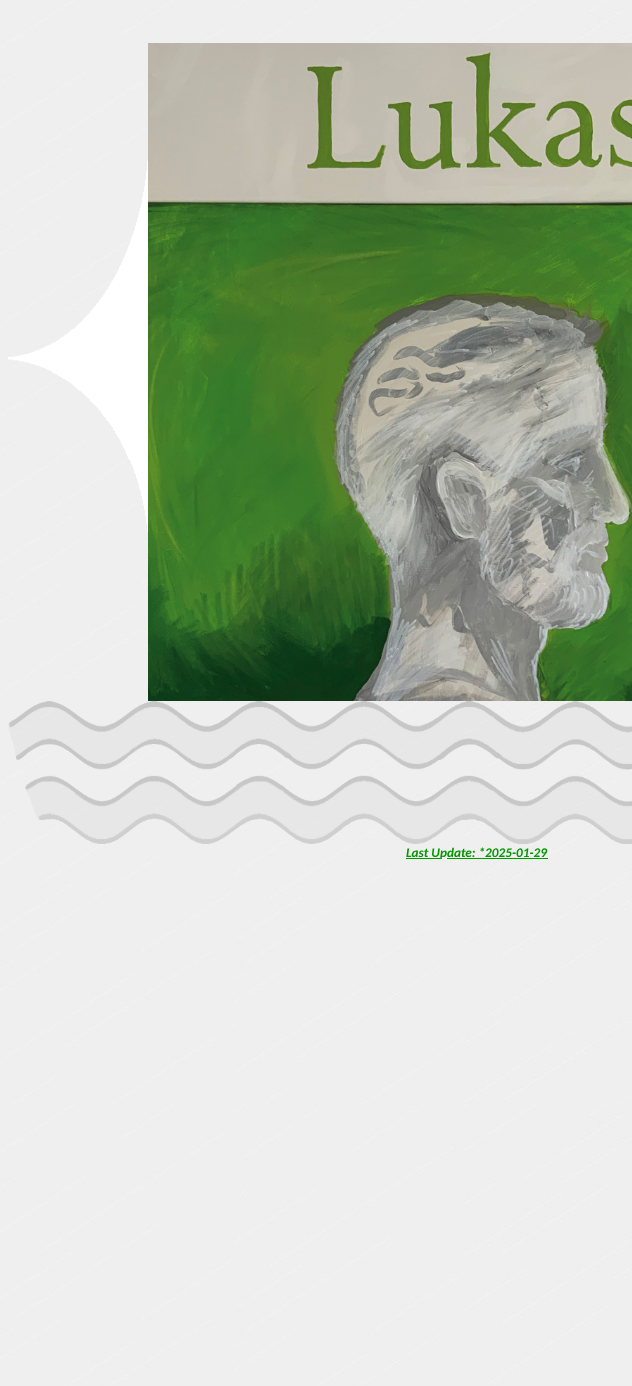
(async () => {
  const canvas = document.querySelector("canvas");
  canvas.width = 632;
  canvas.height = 1386;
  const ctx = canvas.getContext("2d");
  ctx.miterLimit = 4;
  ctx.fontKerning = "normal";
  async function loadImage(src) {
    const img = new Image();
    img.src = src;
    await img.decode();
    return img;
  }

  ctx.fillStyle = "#ffffff";
  ctx.fillRect(0, 0, 632, 1386);
  ctx.drawImage(await loadImage("img/1.png"), 0, 0, 632, 1386);
  ctx.drawImage(await loadImage("img/2.png"), 8, 161, 140, 430);
  ctx.drawImage(await loadImage("img/3.png"), 148, 43, 484, 658);
  ctx.drawImage(await loadImage("img/4.png"), 8, 701, 624, 143);
  ctx.fillStyle = "#009900";
  ctx.fillRect(406, 858, 34, 1);
  ctx.fillRect(447, 858, 101, 1);
  ctx.font = "italic bold 13.25px Carlito";
  ctx.fillText("Last Update: *2025-01-29", 406, 857);
})();
